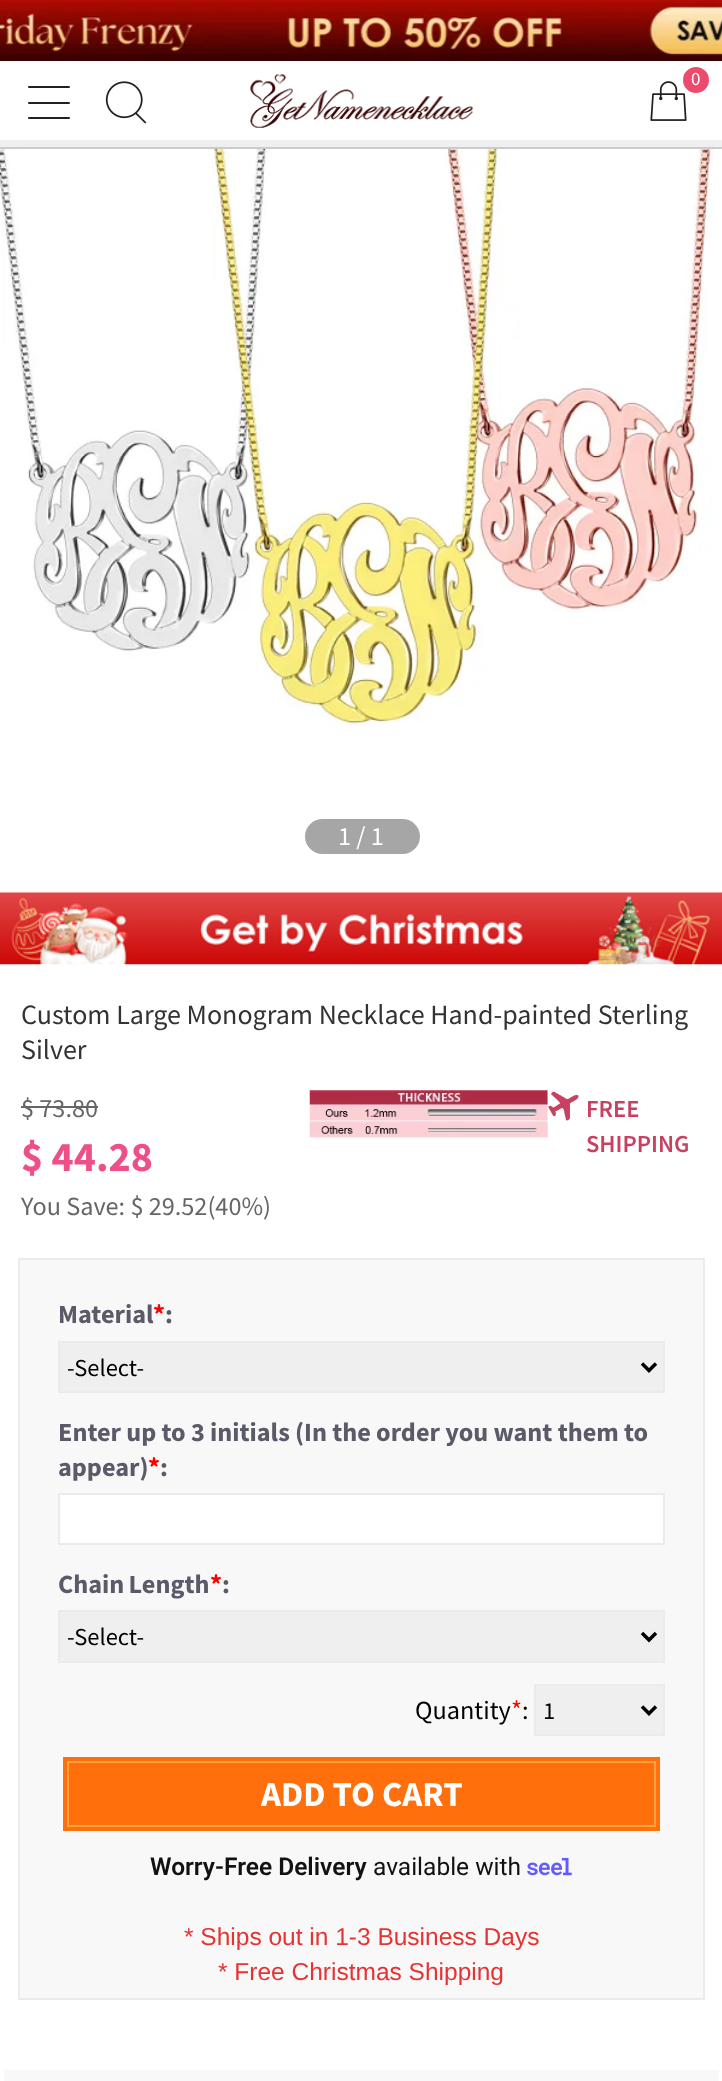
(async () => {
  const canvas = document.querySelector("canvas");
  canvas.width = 722;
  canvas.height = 2081;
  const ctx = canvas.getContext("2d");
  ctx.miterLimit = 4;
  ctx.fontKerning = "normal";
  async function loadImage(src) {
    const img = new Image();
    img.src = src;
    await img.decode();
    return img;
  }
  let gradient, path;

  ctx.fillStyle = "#ffffff";
  ctx.fillRect(0, 0, 722, 2081);
  ctx.drawImage(await loadImage("img/1.png"), 0, 0, 722, 61);
  gradient = ctx.createLinearGradient(361, 61, 361, 147);
  gradient.addColorStop(0, "#ffffff");
  gradient.addColorStop(1, "#efefef");
  ctx.fillStyle = gradient;
  ctx.fillRect(0, 140, 722, 7);
  ctx.fillStyle = "#cccccc";
  ctx.fillRect(0, 147, 722, 2);
  ctx.fillStyle = "#212121";
  ctx.beginPath();
  ctx.roundRect(28, 86, 42, 2, 1);
  ctx.fill();
  ctx.beginPath();
  ctx.roundRect(28, 102, 42, 2, 1);
  ctx.fill();
  ctx.beginPath();
  ctx.roundRect(28, 117, 42, 2, 1);
  ctx.fill();
  ctx.drawImage(await loadImage("img/2.png"), 105, 81, 42, 43);
  ctx.drawImage(await loadImage("img/3.png"), 250, 74, 223, 54);
  ctx.drawImage(await loadImage("img/4.png"), 650, 81, 37, 40);
  ctx.fillStyle = "#ec4b6e";
  ctx.beginPath();
  ctx.arc(696, 80, 12, 0, Math.PI * 2);
  ctx.fill();
  ctx.strokeStyle = "#ec4b6e";
  ctx.lineWidth = 2;
  ctx.stroke();
  ctx.drawImage(await loadImage("img/5.png"), 0, 149, 713, 578);
  ctx.fillStyle = "#a6a6a6";
  ctx.beginPath();
  ctx.roundRect(305, 819, 115, 35, 17.5);
  ctx.fill();
  ctx.drawImage(await loadImage("img/6.png"), 0, 892, 722, 73);
  ctx.fillStyle = "#666666";
  ctx.fillRect(21, 1106, 77, 2);
  ctx.drawImage(await loadImage("img/7.png"), 309, 1090, 239, 48);
  ctx.drawImage(await loadImage("img/8.png"), 547, 1090, 32, 31);
  ctx.fillStyle = "#f8f8f8";
  ctx.beginPath();
  ctx.rect(19, 1259, 685, 740);
  ctx.fill();
  ctx.strokeStyle = "#ebebeb";
  ctx.stroke();
  ctx.fillStyle = "#efefef";
  ctx.beginPath();
  ctx.rect(59, 1342, 605, 50);
  ctx.fill();
  ctx.stroke();
  path = new Path2D("M642 1363.5L649 1370.5L656 1363.5");
  ctx.strokeStyle = "#010101";
  ctx.lineWidth = 3.5;
  ctx.stroke(path);
  ctx.fillStyle = "#ffffff";
  ctx.beginPath();
  ctx.rect(59, 1494, 605, 50);
  ctx.fill();
  ctx.strokeStyle = "#ebebeb";
  ctx.lineWidth = 2;
  ctx.stroke();
  ctx.fillStyle = "#efefef";
  ctx.beginPath();
  ctx.rect(59, 1611, 605, 51);
  ctx.fill();
  ctx.stroke();
  path = new Path2D("M642 1633L649 1640L656 1633");
  ctx.strokeStyle = "#010101";
  ctx.lineWidth = 3.5;
  ctx.stroke(path);
  ctx.beginPath();
  ctx.rect(535, 1685, 129, 50);
  ctx.fill();
  ctx.strokeStyle = "#ebebeb";
  ctx.lineWidth = 2;
  ctx.stroke();
  path = new Path2D("M642 1706.5L649 1713.5L656 1706.5");
  ctx.strokeStyle = "#010101";
  ctx.lineWidth = 3.5;
  ctx.stroke(path);
  ctx.fillStyle = "#ff6f0c";
  ctx.fillRect(63, 1757, 597, 74);
  ctx.strokeStyle = "#ffa441";
  ctx.lineWidth = 2;
  ctx.strokeRect(68, 1762, 587, 64);
  ctx.drawImage(await loadImage("img/9.png"), 527, 1857, 45, 19);
  ctx.fillStyle = "#f8f8f8";
  ctx.fillRect(4, 2070, 715, 11);
  ctx.font = "19px Source Sans Pro";
  ctx.fillStyle = "#ffffff";
  ctx.fillText("0", 691, 85);
  ctx.font = "26.25px Source Sans Pro";
  ctx.fillText("1 / 1", 338, 845);
  ctx.font = "28px Source Sans Pro";
  ctx.fillStyle = "#333333";
  ctx.fillText("Custom Large Monogram Necklace Hand-painted Sterling", 21, 1024);
  ctx.fillText("Silver", 21, 1059);
  ctx.font = "26.25px Source Sans Pro";
  ctx.fillStyle = "#666666";
  ctx.fillText("$ 73.80", 21, 1117);
  ctx.font = "bold 42px Source Sans Pro";
  ctx.fillStyle = "#ef4f89";
  ctx.fillText("$ 44.28", 21, 1171);
  ctx.font = "600 24.5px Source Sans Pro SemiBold";
  ctx.fillStyle = "#c84161";
  ctx.fillText("FREE", 586, 1117);
  ctx.fillText("SHIPPING", 586, 1152);
  ctx.font = "26.25px Source Sans Pro";
  ctx.fillStyle = "#666666";
  ctx.fillText("You Save: $ 29.52(40%)", 21, 1215);
  ctx.font = "bold 26.25px Source Sans Pro";
  ctx.fillStyle = "#5a5a69";
  ctx.fillText("Material", 58, 1323);
  ctx.fillStyle = "#ff0000";
  ctx.fillText("*", 153, 1323);
  ctx.fillStyle = "#5a5a69";
  ctx.fillText(":", 165, 1323);
  ctx.font = "24.5px Source Sans Pro";
  ctx.fillStyle = "#010101";
  ctx.fillText("-Select-", 67, 1376);
  ctx.font = "bold 26.25px Source Sans Pro";
  ctx.fillStyle = "#5a5a69";
  ctx.fillText("Enter up to 3 initials (In the order you want them to", 58, 1441);
  ctx.fillText("appear)", 58, 1476);
  ctx.fillStyle = "#ff0000";
  ctx.fillText("*", 148, 1476);
  ctx.fillStyle = "#5a5a69";
  ctx.fillText(":", 160, 1476);
  ctx.wordSpacing = "-1px";
  ctx.fillText("Chain Length", 58, 1593);
  ctx.wordSpacing = "0px";
  ctx.fillStyle = "#ff0000";
  ctx.fillText("*", 210, 1593);
  ctx.fillStyle = "#5a5a69";
  ctx.fillText(":", 222, 1593);
  ctx.font = "24.5px Source Sans Pro";
  ctx.fillStyle = "#010101";
  ctx.fillText("-Select-", 67, 1645);
  ctx.font = "26.25px Source Sans Pro";
  ctx.fillText("Quantity", 415, 1719);
  ctx.fillStyle = "#ff0000";
  ctx.fillText("*", 511, 1719);
  ctx.fillStyle = "#010101";
  ctx.fillText(":", 522, 1719);
  ctx.font = "24.5px Source Sans Pro";
  ctx.fillText("1", 543, 1719);
  ctx.font = "bold 35px Source Sans Pro";
  ctx.fillStyle = "#ffffff";
  ctx.fillText("ADD TO CART", 261, 1806);
  ctx.font = "600 24.5px Roboto";
  ctx.fillStyle = "#121212";
  ctx.fillText("Worry-Free Delivery", 150, 1875);
  ctx.font = "24.5px Roboto";
  ctx.fillText("available with", 373, 1875);
  ctx.font = "24.5px Liberation Sans";
  ctx.fillStyle = "#e53333";
  ctx.fillText("* Ships out in 1-3 Business Days", 184, 1945);
  ctx.fillText("* Free Christmas Shipping", 218, 1980);
})();
